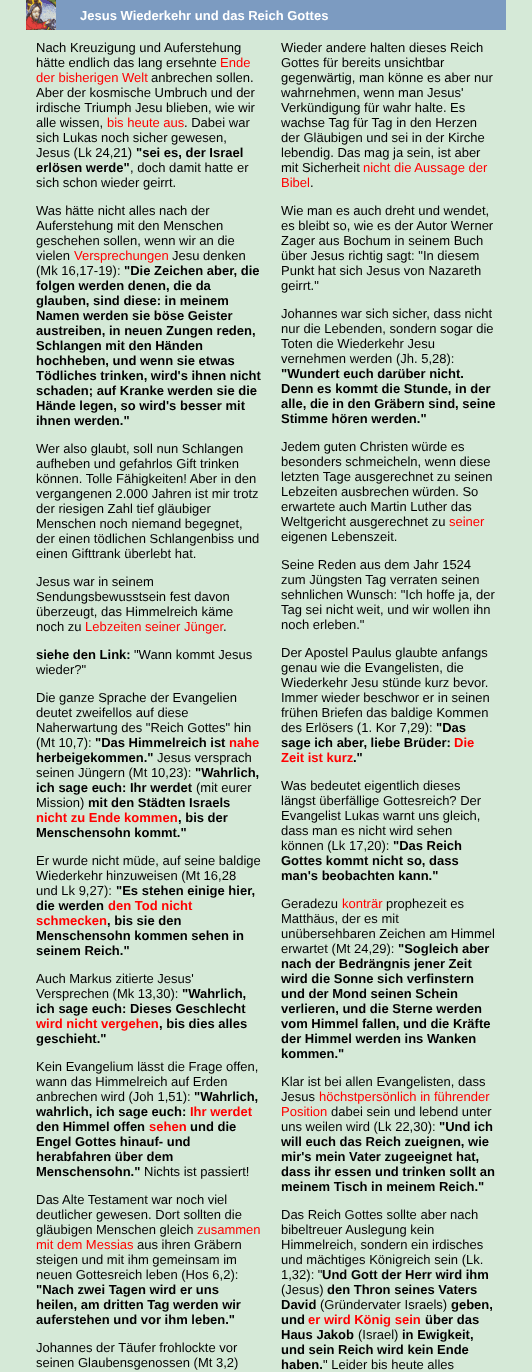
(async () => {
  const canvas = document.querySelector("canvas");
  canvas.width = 532;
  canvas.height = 1372;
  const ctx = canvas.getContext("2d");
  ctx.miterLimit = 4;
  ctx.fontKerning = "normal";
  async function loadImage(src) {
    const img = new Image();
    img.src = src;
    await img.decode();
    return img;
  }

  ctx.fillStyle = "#d5e9d7";
  ctx.fillRect(0, 0, 532, 1372);
  ctx.fillStyle = "#7c9bc1";
  ctx.fillRect(56, 0, 450, 30);
  ctx.drawImage(await loadImage("img/1.png"), 26, 0, 30, 30);
  ctx.font = "bold 13px Liberation Sans";
  ctx.fillStyle = "#ffffff";
  ctx.fillText("Jesus Wiederkehr und das Reich Gottes", 80, 20);
  ctx.font = "13px Liberation Sans";
  ctx.fillStyle = "#000000";
  ctx.fillText("Nach Kreuzigung und Auferstehung", 36, 52);
  ctx.fillText("hätte endlich das lang ersehnte", 36, 67);
  ctx.fillStyle = "#ff0000";
  ctx.fillText("Ende", 220, 67);
  ctx.fillText("der bisherigen Welt", 36, 82);
  ctx.fillStyle = "#000000";
  for (const [text, x, y] of [
    ["anbrechen sollen.", 151, 82],
    ["Aber der kosmische Umbruch und der", 36, 97],
    ["irdische Triumph Jesu blieben, wie wir", 36, 112],
    ["alle wissen,", 36, 127],
  ]) {
    ctx.fillText(text, x, y);
  }
  ctx.fillStyle = "#ff0000";
  ctx.fillText("bis heute aus", 107, 127);
  ctx.fillStyle = "#000000";
  for (const [text, x, y] of [
    [". Dabei war", 184, 127],
    ["sich Lukas noch sicher gewesen,", 36, 142],
    ["Jesus (Lk 24,21)", 36, 157],
  ]) {
    ctx.fillText(text, x, y);
  }
  ctx.font = "bold 13px Liberation Sans";
  ctx.fillText("\"sei es, der Israel", 136, 157);
  ctx.fillText("erlösen werde\"", 36, 172);
  ctx.font = "13px Liberation Sans";
  for (const [text, x, y] of [
    [", doch damit hatte er", 130, 172],
    ["sich schon wieder geirrt.", 36, 187],
    ["Was hätte nicht alles nach der", 36, 215],
    ["Auferstehung mit den Menschen", 36, 230],
    ["geschehen sollen, wenn wir an die", 36, 245],
    ["vielen", 36, 260],
  ]) {
    ctx.fillText(text, x, y);
  }
  ctx.fillStyle = "#ff0000";
  ctx.fillText("Versprechungen", 74, 260);
  ctx.fillStyle = "#000000";
  ctx.fillText("Jesu denken", 172, 260);
  ctx.fillText("(Mk 16,17-19):", 36, 275);
  ctx.font = "bold 13px Liberation Sans";
  for (const [text, x, y] of [
    ["\"Die Zeichen aber, die", 124, 275],
    ["folgen werden denen, die da", 36, 290],
    ["glauben, sind diese: in meinem", 36, 305],
    ["Namen werden sie böse Geister", 36, 320],
    ["austreiben, in neuen Zungen reden,", 36, 335],
    ["Schlangen mit den Händen", 36, 350],
    ["hochheben, und wenn sie etwas", 36, 365],
    ["Tödliches trinken, wird's ihnen nicht", 36, 380],
    ["schaden; auf Kranke werden sie die", 36, 395],
    ["Hände legen, so wird's besser mit", 36, 410],
    ["ihnen werden.\"", 36, 425],
  ]) {
    ctx.fillText(text, x, y);
  }
  ctx.font = "13px Liberation Sans";
  for (const [text, x, y] of [
    ["Wer also glaubt, soll nun Schlangen", 36, 453],
    ["aufheben und gefahrlos Gift trinken", 36, 468],
    ["können. Tolle Fähigkeiten! Aber in den", 36, 483],
    ["vergangenen 2.000 Jahren ist mir trotz", 36, 498],
    ["der riesigen Zahl tief gläubiger", 36, 513],
    ["Menschen noch niemand begegnet,", 36, 528],
    ["der einen tödlichen Schlangenbiss und", 36, 543],
    ["einen Gifttrank überlebt hat.", 36, 558],
    ["Jesus war in seinem", 36, 586],
    ["Sendungsbewusstsein fest davon", 36, 601],
    ["überzeugt, das Himmelreich käme", 36, 616],
    ["noch zu", 36, 631],
  ]) {
    ctx.fillText(text, x, y);
  }
  ctx.fillStyle = "#ff0000";
  ctx.fillText("Lebzeiten seiner Jünger", 85, 631);
  ctx.fillStyle = "#000000";
  ctx.fillText(".", 223, 631);
  ctx.font = "bold 13px Liberation Sans";
  ctx.fillText("siehe den Link:", 36, 659);
  ctx.font = "13px Liberation Sans";
  for (const [text, x, y] of [
    ["\"Wann kommt Jesus", 134, 659],
    ["wieder?\"", 36, 674],
    ["Die ganze Sprache der Evangelien", 36, 702],
    ["deutet zweifellos auf diese", 36, 717],
    ["Naherwartung des \"Reich Gottes\" hin", 36, 732],
    ["(Mt 10,7):", 36, 747],
  ]) {
    ctx.fillText(text, x, y);
  }
  ctx.font = "bold 13px Liberation Sans";
  ctx.fillText("\"Das Himmelreich ist", 95, 747);
  ctx.fillStyle = "#ff0000";
  ctx.fillText("nahe", 229, 747);
  ctx.fillStyle = "#000000";
  ctx.fillText("herbeigekommen.\"", 36, 762);
  ctx.font = "13px Liberation Sans";
  ctx.fillText("Jesus versprach", 157, 762);
  ctx.fillText("seinen Jüngern (Mt 10,23):", 36, 777);
  ctx.font = "bold 13px Liberation Sans";
  ctx.fillText("\"Wahrlich,", 195, 777);
  ctx.fillText("ich sage euch: Ihr werdet", 36, 792);
  ctx.font = "13px Liberation Sans";
  ctx.fillText("(mit eurer", 196, 792);
  ctx.fillText("Mission)", 36, 807);
  ctx.font = "bold 13px Liberation Sans";
  ctx.fillText("mit den Städten Israels", 88, 807);
  ctx.fillStyle = "#ff0000";
  ctx.fillText("nicht zu Ende kommen", 36, 822);
  ctx.fillStyle = "#000000";
  ctx.fillText(", bis der", 178, 822);
  ctx.fillText("Menschensohn kommt.\"", 36, 837);
  ctx.font = "13px Liberation Sans";
  for (const [text, x, y] of [
    ["Er wurde nicht müde, auf seine baldige", 36, 865],
    ["Wiederkehr hinzuweisen (Mt 16,28", 36, 880],
    ["und Lk 9,27):", 36, 895],
  ]) {
    ctx.fillText(text, x, y);
  }
  ctx.font = "bold 13px Liberation Sans";
  ctx.fillText("\"Es stehen einige hier,", 116, 895);
  ctx.fillText("die werden", 36, 910);
  ctx.fillStyle = "#ff0000";
  ctx.fillText("den Tod nicht", 108, 910);
  ctx.fillText("schmecken", 36, 925);
  ctx.fillStyle = "#000000";
  for (const [text, x, y] of [
    [", bis sie den", 107, 925],
    ["Menschensohn kommen sehen in", 36, 940],
    ["seinem Reich.\"", 36, 955],
  ]) {
    ctx.fillText(text, x, y);
  }
  ctx.font = "13px Liberation Sans";
  ctx.fillText("Auch Markus zitierte Jesus'", 36, 983);
  ctx.fillText("Versprechen (Mk 13,30):", 36, 998);
  ctx.font = "bold 13px Liberation Sans";
  ctx.fillText("\"Wahrlich,", 182, 998);
  ctx.fillText("ich sage euch: Dieses Geschlecht", 36, 1013);
  ctx.fillStyle = "#ff0000";
  ctx.fillText("wird nicht vergehen", 36, 1028);
  ctx.fillStyle = "#000000";
  ctx.fillText(", bis dies alles", 159, 1028);
  ctx.fillText("geschieht.\"", 36, 1043);
  ctx.font = "13px Liberation Sans";
  for (const [text, x, y] of [
    ["Kein Evangelium lässt die Frage offen,", 36, 1071],
    ["wann das Himmelreich auf Erden", 36, 1086],
    ["anbrechen wird (Joh 1,51):", 36, 1101],
  ]) {
    ctx.fillText(text, x, y);
  }
  ctx.font = "bold 13px Liberation Sans";
  ctx.fillText("\"Wahrlich,", 194, 1101);
  ctx.fillText("wahrlich, ich sage euch:", 36, 1116);
  ctx.fillStyle = "#ff0000";
  ctx.fillText("Ihr werdet", 190, 1116);
  ctx.fillStyle = "#000000";
  ctx.fillText("den Himmel offen", 36, 1131);
  ctx.fillStyle = "#ff0000";
  ctx.fillText("sehen", 149, 1131);
  ctx.fillStyle = "#000000";
  for (const [text, x, y] of [
    ["und die", 190, 1131],
    ["Engel Gottes hinauf- und", 36, 1146],
    ["herabfahren über dem", 36, 1161],
    ["Menschensohn.\"", 36, 1176],
  ]) {
    ctx.fillText(text, x, y);
  }
  ctx.font = "13px Liberation Sans";
  for (const [text, x, y] of [
    ["Nichts ist passiert!", 144, 1176],
    ["Das Alte Testament war noch viel", 36, 1204],
    ["deutlicher gewesen. Dort sollten die", 36, 1219],
    ["gläubigen Menschen gleich", 36, 1234],
  ]) {
    ctx.fillText(text, x, y);
  }
  ctx.fillStyle = "#ff0000";
  ctx.fillText("zusammen", 197, 1234);
  ctx.fillText("mit dem Messias", 36, 1249);
  ctx.fillStyle = "#000000";
  for (const [text, x, y] of [
    ["aus ihren Gräbern", 137, 1249],
    ["steigen und mit ihm gemeinsam im", 36, 1264],
    ["neuen Gottesreich leben (Hos 6,2):", 36, 1279],
  ]) {
    ctx.fillText(text, x, y);
  }
  ctx.font = "bold 13px Liberation Sans";
  for (const [text, x, y] of [
    ["\"Nach zwei Tagen wird er uns", 36, 1294],
    ["heilen, am dritten Tag werden wir", 36, 1309],
    ["auferstehen und vor ihm leben.\"", 36, 1324],
  ]) {
    ctx.fillText(text, x, y);
  }
  ctx.font = "13px Liberation Sans";
  for (const [text, x, y] of [
    ["Johannes der Täufer frohlockte vor", 36, 1352],
    ["seinen Glaubensgenossen (Mt 3,2)", 36, 1367],
    ["Wieder andere halten dieses Reich", 281, 52],
    ["Gottes für bereits unsichtbar", 281, 67],
    ["gegenwärtig, man könne es aber nur", 281, 82],
    ["wahrnehmen, wenn man Jesus'", 281, 97],
    ["Verkündigung für wahr halte. Es", 281, 112],
    ["wachse Tag für Tag in den Herzen", 281, 127],
    ["der Gläubigen und sei in der Kirche", 281, 142],
    ["lebendig. Das mag ja sein, ist aber", 281, 157],
    ["mit Sicherheit", 281, 172],
  ]) {
    ctx.fillText(text, x, y);
  }
  ctx.fillStyle = "#ff0000";
  ctx.fillText("nicht die Aussage der", 363, 172);
  ctx.fillText("Bibel", 281, 187);
  ctx.fillStyle = "#000000";
  for (const [text, x, y] of [
    [".", 310, 187],
    ["Wie man es auch dreht und wendet,", 281, 215],
    ["es bleibt so, wie es der Autor Werner", 281, 230],
    ["Zager aus Bochum in seinem Buch", 281, 245],
    ["über Jesus richtig sagt: \"In diesem", 281, 260],
    ["Punkt hat sich Jesus von Nazareth", 281, 275],
    ["geirrt.\"", 281, 290],
    ["Johannes war sich sicher, dass nicht", 281, 318],
    ["nur die Lebenden, sondern sogar die", 281, 333],
    ["Toten die Wiederkehr Jesu", 281, 348],
    ["vernehmen werden (Jh. 5,28):", 281, 363],
  ]) {
    ctx.fillText(text, x, y);
  }
  ctx.font = "bold 13px Liberation Sans";
  for (const [text, x, y] of [
    ["\"Wundert euch darüber nicht.", 281, 378],
    ["Denn es kommt die Stunde, in der", 281, 393],
    ["alle, die in den Gräbern sind, seine", 281, 408],
    ["Stimme hören werden.\"", 281, 423],
  ]) {
    ctx.fillText(text, x, y);
  }
  ctx.font = "13px Liberation Sans";
  for (const [text, x, y] of [
    ["Jedem guten Christen würde es", 281, 451],
    ["besonders schmeicheln, wenn diese", 281, 466],
    ["letzten Tage ausgerechnet zu seinen", 281, 481],
    ["Lebzeiten ausbrechen würden. So", 281, 496],
    ["erwartete auch Martin Luther das", 281, 511],
    ["Weltgericht ausgerechnet zu", 281, 526],
  ]) {
    ctx.fillText(text, x, y);
  }
  ctx.fillStyle = "#ff0000";
  ctx.fillText("seiner", 449, 526);
  ctx.fillStyle = "#000000";
  for (const [text, x, y] of [
    ["eigenen Lebenszeit.", 281, 541],
    ["Seine Reden aus dem Jahr 1524", 281, 569],
    ["zum Jüngsten Tag verraten seinen", 281, 584],
    ["sehnlichen Wunsch: \"Ich hoffe ja, der", 281, 599],
    ["Tag sei nicht weit, und wir wollen ihn", 281, 614],
    ["noch erleben.\"", 281, 629],
    ["Der Apostel Paulus glaubte anfangs", 281, 657],
    ["genau wie die Evangelisten, die", 281, 672],
    ["Wiederkehr Jesu stünde kurz bevor.", 281, 687],
    ["Immer wieder beschwor er in seinen", 281, 702],
    ["frühen Briefen das baldige Kommen", 281, 717],
    ["des Erlösers (1. Kor 7,29):", 281, 732],
  ]) {
    ctx.fillText(text, x, y);
  }
  ctx.font = "bold 13px Liberation Sans";
  ctx.fillText("\"Das", 436, 732);
  ctx.fillText("sage ich aber, liebe Brüder:", 281, 747);
  ctx.fillStyle = "#ff0000";
  ctx.fillText("Die", 454, 747);
  ctx.fillText("Zeit ist kurz", 281, 762);
  ctx.fillStyle = "#000000";
  ctx.fillText(".\"", 353, 762);
  ctx.font = "13px Liberation Sans";
  for (const [text, x, y] of [
    ["Was bedeutet eigentlich dieses", 281, 790],
    ["längst überfällige Gottesreich? Der", 281, 805],
    ["Evangelist Lukas warnt uns gleich,", 281, 820],
    ["dass man es nicht wird sehen", 281, 835],
    ["können (Lk 17,20):", 281, 850],
  ]) {
    ctx.fillText(text, x, y);
  }
  ctx.font = "bold 13px Liberation Sans";
  for (const [text, x, y] of [
    ["\"Das Reich", 393, 850],
    ["Gottes kommt nicht so, dass", 281, 865],
    ["man's beobachten kann.\"", 281, 880],
  ]) {
    ctx.fillText(text, x, y);
  }
  ctx.font = "13px Liberation Sans";
  ctx.fillText("Geradezu", 281, 908);
  ctx.fillStyle = "#ff0000";
  ctx.fillText("konträr", 342, 908);
  ctx.fillStyle = "#000000";
  for (const [text, x, y] of [
    ["prophezeit es", 386, 908],
    ["Matthäus, der es mit", 281, 923],
    ["unübersehbaren Zeichen am Himmel", 281, 938],
    ["erwartet (Mt 24,29):", 281, 953],
  ]) {
    ctx.fillText(text, x, y);
  }
  ctx.font = "bold 13px Liberation Sans";
  for (const [text, x, y] of [
    ["\"Sogleich aber", 398, 953],
    ["nach der Bedrängnis jener Zeit", 281, 968],
    ["wird die Sonne sich verfinstern", 281, 983],
    ["und der Mond seinen Schein", 281, 998],
    ["verlieren, und die Sterne werden", 281, 1013],
    ["vom Himmel fallen, und die Kräfte", 281, 1028],
    ["der Himmel werden ins Wanken", 281, 1043],
    ["kommen.\"", 281, 1058],
  ]) {
    ctx.fillText(text, x, y);
  }
  ctx.font = "13px Liberation Sans";
  ctx.fillText("Klar ist bei allen Evangelisten, dass", 281, 1086);
  ctx.fillText("Jesus", 281, 1101);
  ctx.fillStyle = "#ff0000";
  ctx.fillText("höchstpersönlich in führender", 319, 1101);
  ctx.fillText("Position", 281, 1116);
  ctx.fillStyle = "#000000";
  ctx.fillText("dabei sein und lebend unter", 331, 1116);
  ctx.fillText("uns weilen wird (Lk 22,30):", 281, 1131);
  ctx.font = "bold 13px Liberation Sans";
  for (const [text, x, y] of [
    ["\"Und ich", 439, 1131],
    ["will euch das Reich zueignen, wie", 281, 1146],
    ["mir's mein Vater zugeeignet hat,", 281, 1161],
    ["dass ihr essen und trinken sollt an", 281, 1176],
    ["meinem Tisch in meinem Reich.\"", 281, 1191],
  ]) {
    ctx.fillText(text, x, y);
  }
  ctx.font = "13px Liberation Sans";
  for (const [text, x, y] of [
    ["Das Reich Gottes sollte aber nach", 281, 1219],
    ["bibeltreuer Auslegung kein", 281, 1234],
    ["Himmelreich, sondern ein irdisches", 281, 1249],
    ["und mächtiges Königreich sein (Lk.", 281, 1264],
    ["1,32): \"", 281, 1279],
  ]) {
    ctx.fillText(text, x, y);
  }
  ctx.font = "bold 13px Liberation Sans";
  ctx.fillText("Und Gott der Herr wird ihm", 322, 1279);
  ctx.font = "13px Liberation Sans";
  ctx.fillText("(Jesus)", 281, 1294);
  ctx.font = "bold 13px Liberation Sans";
  ctx.fillText("den Thron seines Vaters", 327, 1294);
  ctx.fillText("David", 281, 1309);
  ctx.font = "13px Liberation Sans";
  ctx.fillText("(Gründervater Israels)", 320, 1309);
  ctx.font = "bold 13px Liberation Sans";
  ctx.fillText("geben,", 451, 1309);
  ctx.fillText("und", 281, 1324);
  ctx.fillStyle = "#ff0000";
  ctx.fillText("er wird König sein", 308, 1324);
  ctx.fillStyle = "#000000";
  ctx.fillText("über das", 425, 1324);
  ctx.fillText("Haus Jakob", 281, 1339);
  ctx.font = "13px Liberation Sans";
  ctx.fillText("(Israel)", 358, 1339);
  ctx.font = "bold 13px Liberation Sans";
  for (const [text, x, y] of [
    ["in Ewigkeit,", 402, 1339],
    ["und sein Reich wird kein Ende", 281, 1354],
    ["haben.", 281, 1369],
  ]) {
    ctx.fillText(text, x, y);
  }
  ctx.font = "13px Liberation Sans";
  ctx.fillText("\" Leider bis heute alles", 323, 1369);
})();
